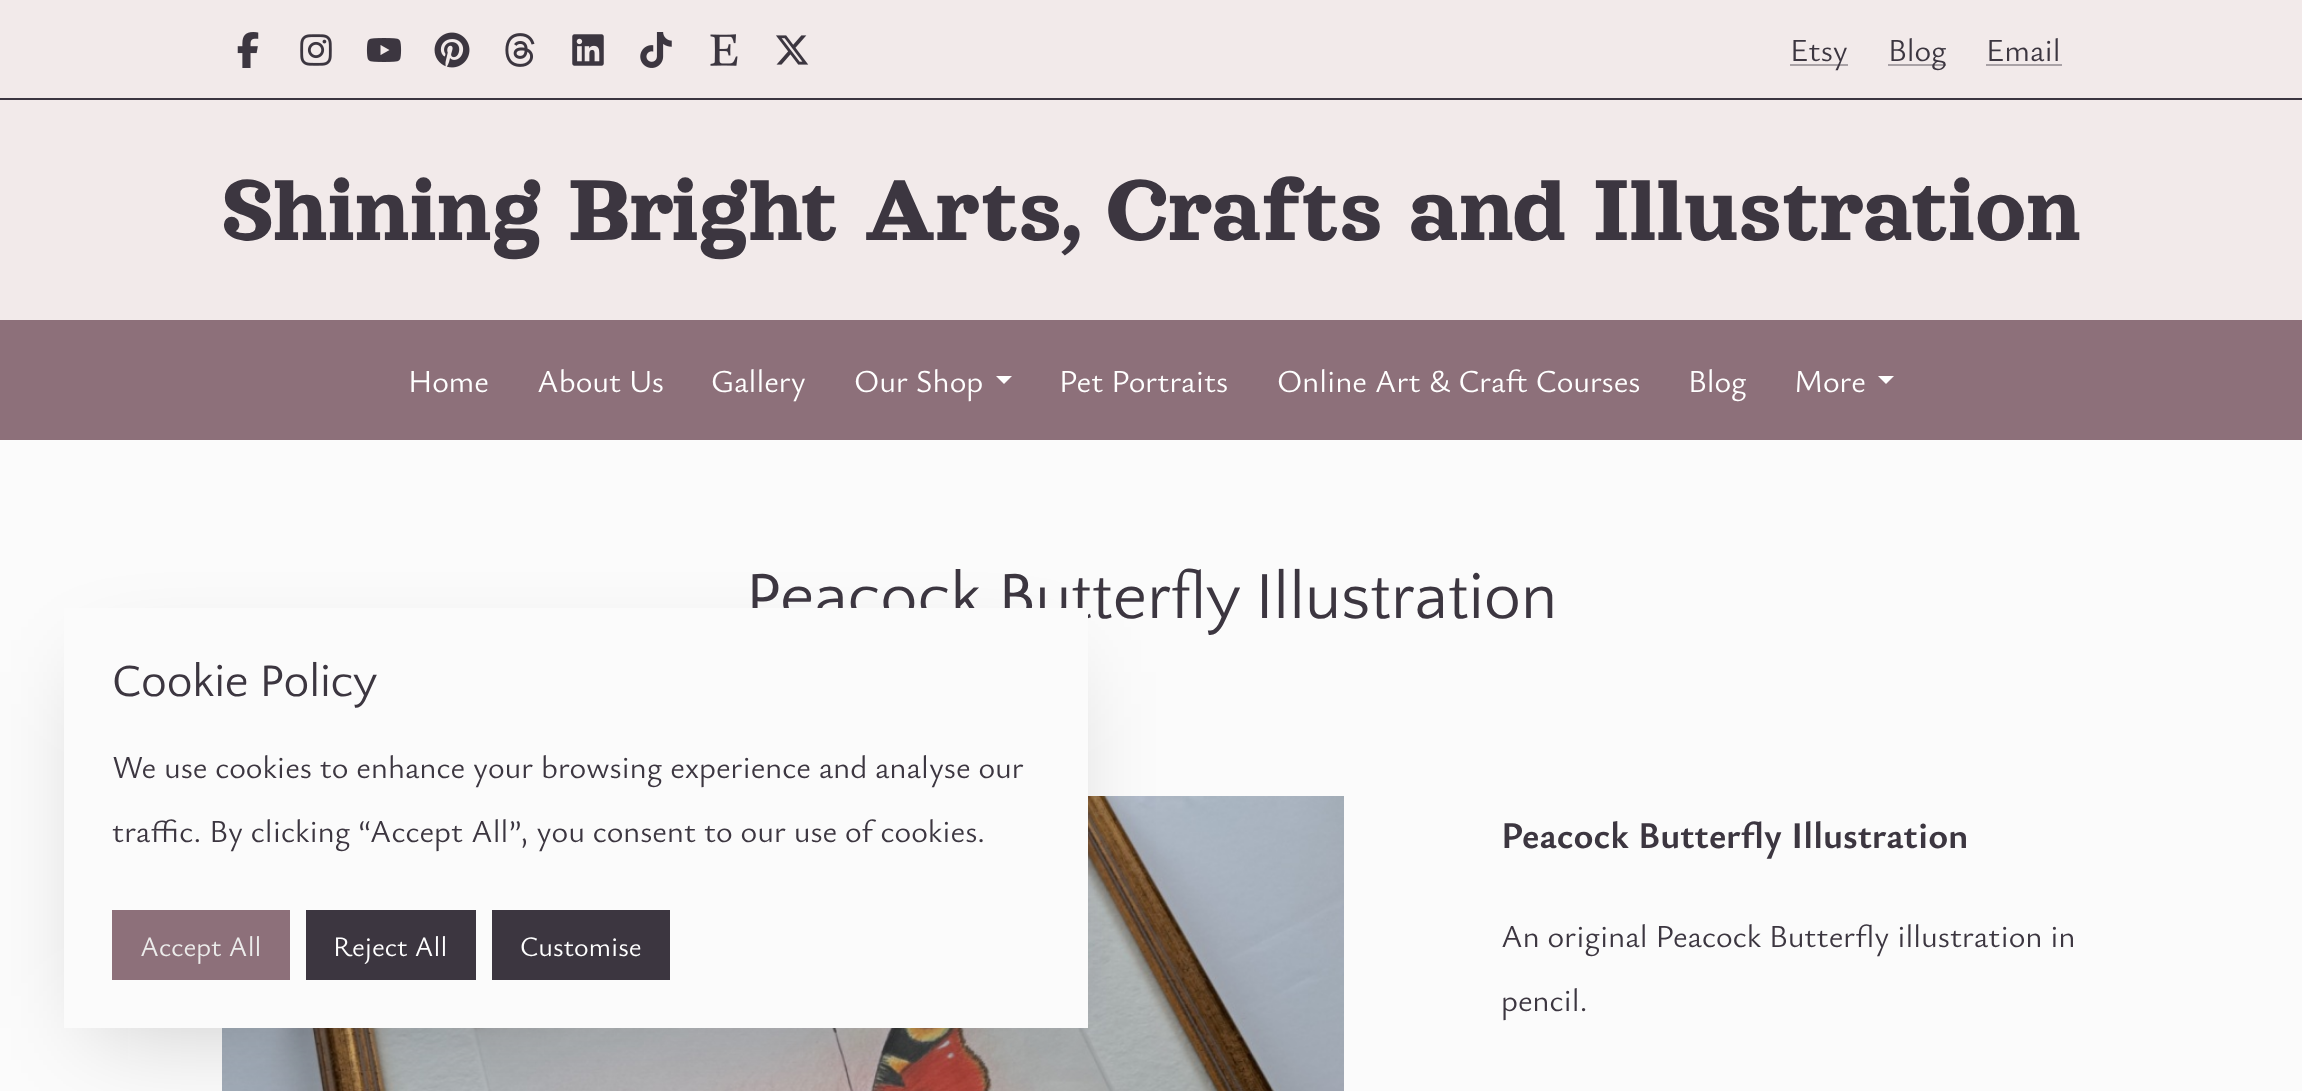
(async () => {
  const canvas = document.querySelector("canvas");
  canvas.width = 2302;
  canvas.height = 1091;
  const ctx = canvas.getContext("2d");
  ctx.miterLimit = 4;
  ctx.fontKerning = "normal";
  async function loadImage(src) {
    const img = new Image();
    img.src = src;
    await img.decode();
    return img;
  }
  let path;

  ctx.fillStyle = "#fbfbfb";
  ctx.fillRect(0, 0, 2302, 1091);
  ctx.fillStyle = "#f2eaea";
  ctx.fillRect(0, 0, 2302, 320);
  ctx.fillStyle = "#3c3640";
  ctx.fillRect(0, 98, 2302, 2);
  ctx.drawImage(await loadImage("img/1.png"), 237, 32, 22, 36);
  ctx.drawImage(await loadImage("img/2.png"), 300, 34, 32, 32);
  ctx.drawImage(await loadImage("img/3.png"), 366, 38, 36, 24);
  ctx.drawImage(await loadImage("img/4.png"), 434, 32, 36, 36);
  ctx.drawImage(await loadImage("img/5.png"), 505, 33, 30, 34);
  ctx.drawImage(await loadImage("img/6.png"), 572, 34, 32, 32);
  ctx.drawImage(await loadImage("img/7.png"), 640, 32, 32, 36);
  ctx.drawImage(await loadImage("img/8.png"), 710, 34, 28, 32);
  ctx.drawImage(await loadImage("img/9.png"), 776, 35, 33, 30);
  for (const [x, y, w, h, color] of [
    [1790, 64, 58, 2, "#a9a2a6"],
    [1888, 64, 58, 2, "#a9a2a6"],
    [1986, 64, 76, 2, "#a9a2a6"],
    [0, 320, 2302, 120, "#8d707a"],
  ]) {
    ctx.fillStyle = color;
    ctx.fillRect(x, y, w, h);
  }
  ctx.fillStyle = "#ffffff";
  path = new Path2D("M996 376H1012L1004 384Z");
  ctx.fill(path);
  path = new Path2D("M1878 376H1894L1886 384Z");
  ctx.fill(path);
  ctx.drawImage(await loadImage("img/10.png"), 222, 796, 1122, 295);
  ctx.fillStyle = "rgba(10, 10, 10, 0.2)";
  ctx.filter = "blur(48px)";
  ctx.beginPath();
  ctx.rect(96, 672, 960, 356);
  ctx.fill();
  ctx.filter = "none";
  ctx.font = "32px Ysabeau Office";
  ctx.fillStyle = "#3c3640";
  for (const [text, x, y] of [
    ["Etsy", 1790, 61],
    ["Blog", 1888, 61],
    ["Email", 1986, 61],
  ]) {
    ctx.fillText(text, x, y);
  }
  ctx.font = "98.75px Orelega One";
  ctx.fillText("Shining Bright Arts, Crafts and Illustration", 222, 240);
  ctx.font = "32px Ysabeau Office";
  ctx.fillStyle = "#ffffff";
  for (const [text, x, y] of [
    ["Home", 408, 392],
    ["About Us", 537, 392],
    ["Gallery", 711, 392],
    ["Our Shop", 854, 392],
    ["Pet Portraits", 1059, 392],
    ["Online Art & Craft Courses", 1277, 392],
    ["Blog", 1688, 392],
    ["More", 1794, 392],
  ]) {
    ctx.fillText(text, x, y);
  }
  ctx.font = "66.4px Quattrocento Sans";
  ctx.fillStyle = "#3c3640";
  ctx.fillText("Peacock Butterfly Illustration", 746, 618);
  ctx.font = "bold 37.5px Ysabeau Office";
  ctx.fillText("Peacock Butterfly Illustration", 1501, 848);
  ctx.font = "32px Ysabeau Office";
  ctx.fillText("An original Peacock Butterfly illustration in", 1501, 947);
  ctx.fillText("pencil.", 1501, 1011);
  ctx.fillStyle = "#fbfbfb";
  ctx.fillRect(64, 608, 1024, 420);
  ctx.font = "46px Quattrocento Sans";
  ctx.fillStyle = "#3c3640";
  ctx.fillText("Cookie Policy", 112, 696);
  ctx.font = "32px Ysabeau Office";
  ctx.fillText("We use cookies to enhance your browsing experience and analyse our", 112, 778);
  ctx.fillText("traffic. By clicking “Accept All”, you consent to our use of cookies.", 112, 842);
  ctx.fillStyle = "#8d707a";
  ctx.fillRect(112, 910, 178, 70);
  ctx.font = "28px Ysabeau Office";
  ctx.fillStyle = "#ececeb";
  ctx.fillText("Accept All", 140, 956);
  ctx.fillStyle = "#3c3640";
  ctx.fillRect(306, 910, 170, 70);
  ctx.fillStyle = "#ffffff";
  ctx.fillText("Reject All", 333, 956);
  ctx.fillStyle = "#3c3640";
  ctx.fillRect(492, 910, 178, 70);
  ctx.fillStyle = "#ffffff";
  ctx.fillText("Customise", 520, 956);
})();
